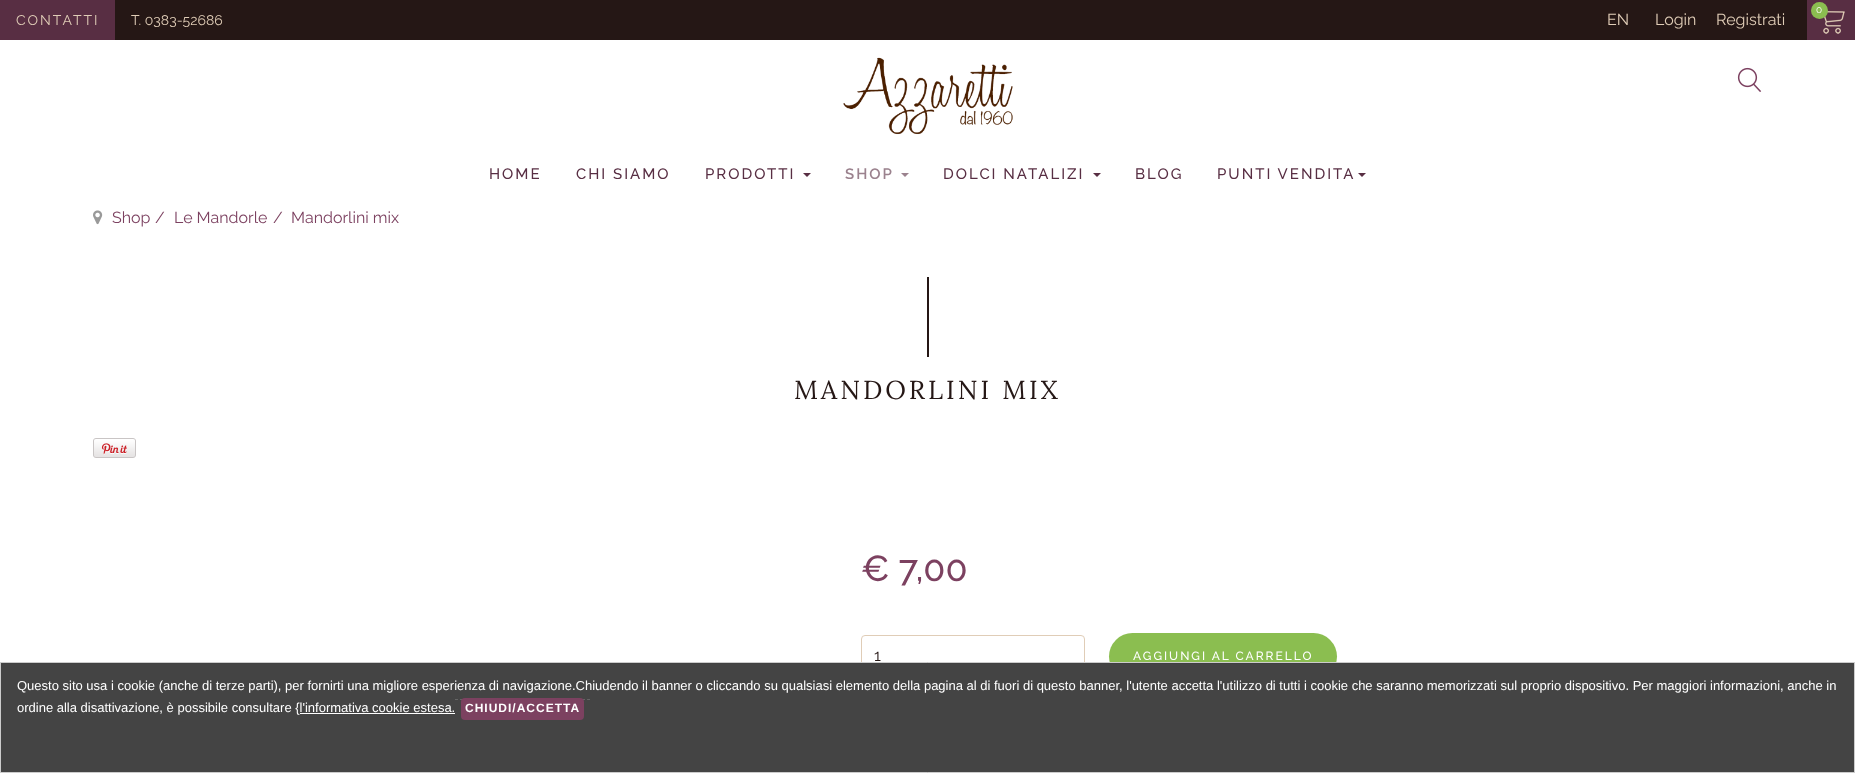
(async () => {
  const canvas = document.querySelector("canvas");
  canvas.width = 1855;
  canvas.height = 773;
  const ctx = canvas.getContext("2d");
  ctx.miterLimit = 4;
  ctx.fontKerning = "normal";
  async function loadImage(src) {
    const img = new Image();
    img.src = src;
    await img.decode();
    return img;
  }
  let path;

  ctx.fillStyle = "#ffffff";
  ctx.fillRect(0, 0, 1855, 773);
  for (const [x, y, w, h, color] of [
    [115, 0, 1692, 40, "#251715"],
    [0, 0, 115, 40, "#582e43"],
    [1807, 0, 48, 40, "#582e43"],
  ]) {
    ctx.fillStyle = color;
    ctx.fillRect(x, y, w, h);
  }
  ctx.drawImage(await loadImage("img/1.png"), 1823, 11, 22, 23);
  ctx.fillStyle = "#8bbe50";
  ctx.beginPath();
  ctx.arc(1819.5, 10.5, 8.5, 0, Math.PI * 2);
  ctx.fill();
  ctx.drawImage(await loadImage("img/2.png"), 843, 57, 170, 78);
  ctx.drawImage(await loadImage("img/3.png"), 1737, 67, 25, 25);
  ctx.fillStyle = "#582e43";
  path = new Path2D("M803 173H811L807 177Z");
  ctx.fill(path);
  ctx.fillStyle = "#9b828e";
  path = new Path2D("M901 173H909L905 177Z");
  ctx.fill(path);
  ctx.fillStyle = "#582e43";
  path = new Path2D("M1093 173H1101L1097 177Z");
  ctx.fill(path);
  path = new Path2D("M1358 173H1366L1362 177Z");
  ctx.fill(path);
  ctx.drawImage(await loadImage("img/4.png"), 93, 210, 10, 15);
  ctx.fillStyle = "#251715";
  ctx.fillRect(927, 277, 2, 80);
  ctx.drawImage(await loadImage("img/5.png"), 93, 438, 43, 20);
  ctx.beginPath();
  ctx.roundRect(861.5, 635.5, 223, 39, 3.5);
  ctx.strokeStyle = "#e0cdb7";
  ctx.stroke();
  ctx.fillStyle = "#8bbe50";
  ctx.beginPath();
  ctx.roundRect(1109, 633, 228, 47, 23.5);
  ctx.fill();
  ctx.fillStyle = "#444444";
  ctx.beginPath();
  ctx.rect(0.5, 662.5, 1854, 110);
  ctx.fill();
  ctx.strokeStyle = "#cccccc";
  ctx.stroke();
  ctx.fillStyle = "#414141";
  path = new Path2D("M5 664H1850C1852 664 1854 666 1854 668V667C1854 665 1852 663 1850 663H5C3 663 1 665 1 667V668C1 666 3 664 5 664Z");
  ctx.fill(path);
  path = new Path2D("M455 699.5H590");
  ctx.strokeStyle = "#666666";
  ctx.setLineDash([3, 2.08]);
  ctx.stroke(path);
  ctx.fillStyle = "#7c4160";
  ctx.beginPath();
  ctx.roundRect(461, 698, 123, 22, 4);
  ctx.fill();
  ctx.fillStyle = "#ffffff";
  ctx.fillRect(300, 713, 155, 1);
  ctx.letterSpacing = "2px";
  ctx.font = "14px Raleway";
  ctx.fillStyle = "#e0cdb7";
  ctx.fillText("CONTATTI", 16, 25);
  ctx.letterSpacing = "0px";
  ctx.fillText("T. 0383-52686", 131, 25);
  ctx.font = "10px Raleway";
  ctx.fillStyle = "#ffffff";
  ctx.fillText("0", 1816, 13);
  ctx.font = "16px Raleway";
  ctx.fillStyle = "#e0cdb7";
  for (const [text, x, y] of [
    ["EN", 1607, 25],
    ["Login", 1655, 25],
    ["Registrati", 1716, 25],
  ]) {
    ctx.fillText(text, x, y);
  }
  ctx.letterSpacing = "2px";
  ctx.font = "500 15px Raleway";
  ctx.fillStyle = "#582e43";
  for (const [text, x, y] of [
    ["HOME", 489, 179],
    ["CHI SIAMO", 576, 179],
    ["PRODOTTI", 705, 179],
  ]) {
    ctx.fillText(text, x, y);
  }
  ctx.font = "600 15px Raleway";
  ctx.fillStyle = "#9b828e";
  ctx.fillText("SHOP", 845, 179);
  ctx.font = "500 15px Raleway";
  ctx.fillStyle = "#582e43";
  for (const [text, x, y] of [
    ["DOLCI NATALIZI", 943, 179],
    ["BLOG", 1135, 179],
    ["PUNTI VENDITA", 1217, 179],
  ]) {
    ctx.fillText(text, x, y);
  }
  ctx.letterSpacing = "0px";
  ctx.font = "16px Raleway";
  ctx.fillStyle = "#7c4160";
  for (const [text, x, y] of [
    ["Shop", 112, 223],
    ["/", 155, 223],
    ["Le Mandorle", 174, 223],
    ["/", 273, 223],
    ["Mandorlini mix", 291, 223],
  ]) {
    ctx.fillText(text, x, y);
  }
  ctx.letterSpacing = "3px";
  ctx.font = "26px Lora";
  ctx.fillStyle = "#251715";
  ctx.fillText("MANDORLINI MIX", 794, 399);
  ctx.letterSpacing = "0px";
  ctx.font = "500 36px Raleway";
  ctx.fillStyle = "#7c4160";
  ctx.fillText("€ 7,00", 861, 581);
  ctx.font = "16px Raleway";
  ctx.fillStyle = "#251715";
  ctx.fillText("1", 874, 661);
  ctx.letterSpacing = "2px";
  ctx.font = "500 12px Raleway";
  ctx.fillStyle = "#ffffff";
  ctx.fillText("AGGIUNGI AL CARRELLO", 1133, 660);
  ctx.letterSpacing = "0px";
  ctx.font = "13px Liberation Sans";
  ctx.fillText("Questo sito usa i cookie (anche di terze parti), per fornirti una migliore esperienza di navigazione.Chiudendo il banner o cliccando su qualsiasi elemento della pagina al di fuori di questo banner, l'utente accetta l'utilizzo di tutti i cookie che saranno memorizzati sul proprio dispositivo. Per maggiori informazioni, anche in", 17, 690);
  ctx.fillText("ordine alla disattivazione, è possibile consultare {l'informativa cookie estesa.", 17, 712);
  ctx.letterSpacing = "1px";
  ctx.font = "bold 12px Liberation Sans";
  ctx.fillText("CHIUDI/ACCETTA", 465, 712);
})();
